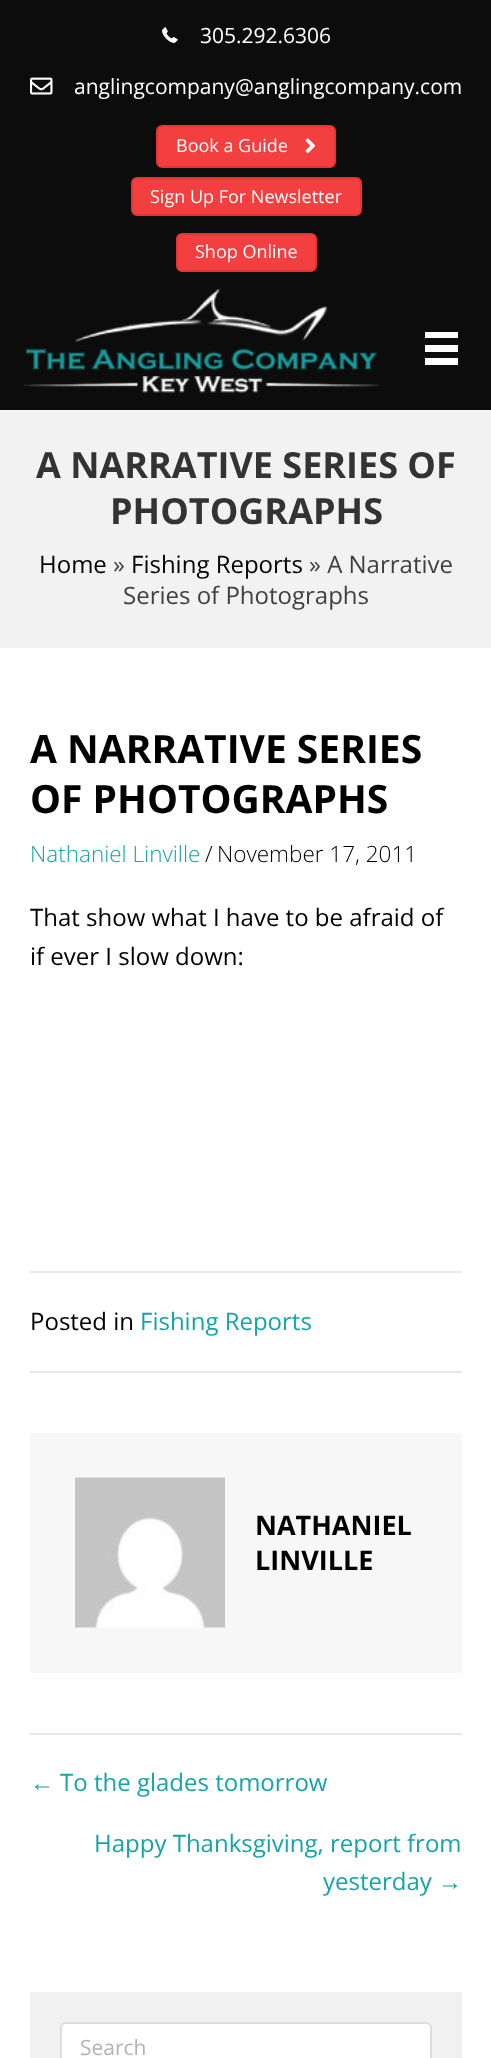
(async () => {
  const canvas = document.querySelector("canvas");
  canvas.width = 491;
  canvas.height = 2058;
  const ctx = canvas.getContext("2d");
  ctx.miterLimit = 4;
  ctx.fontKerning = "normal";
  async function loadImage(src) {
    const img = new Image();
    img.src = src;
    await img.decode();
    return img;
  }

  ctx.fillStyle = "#0c0c0c";
  ctx.fillRect(0, 0, 491, 2058);
  ctx.drawImage(await loadImage("img/1.png"), 162, 27, 16, 16);
  ctx.drawImage(await loadImage("img/2.png"), 30, 77, 23, 18);
  ctx.fillStyle = "#f33f3f";
  ctx.beginPath();
  ctx.roundRect(157, 126, 178, 41, 5);
  ctx.fill();
  ctx.strokeStyle = "#e73333";
  ctx.lineWidth = 2;
  ctx.stroke();
  ctx.drawImage(await loadImage("img/3.png"), 305, 138, 10, 15);
  ctx.beginPath();
  ctx.roundRect(132, 178, 229, 37, 5);
  ctx.fill();
  ctx.stroke();
  ctx.beginPath();
  ctx.roundRect(177, 234, 139, 37, 5);
  ctx.fill();
  ctx.stroke();
  ctx.drawImage(await loadImage("img/4.png"), 24, 289, 356, 104);
  for (const [x, y, w, h, color] of [
    [425, 332, 33, 6, "#ffffff"],
    [425, 345, 33, 7, "#ffffff"],
    [425, 358, 33, 7, "#ffffff"],
    [0, 410, 491, 238, "#f2f2f2"],
    [0, 648, 491, 1410, "#ffffff"],
    [30, 1271, 432, 2, "#e8e8e8"],
    [30, 1371, 432, 2, "#e8e8e8"],
    [30, 1433, 432, 240, "#f7f7f7"],
  ]) {
    ctx.fillStyle = color;
    ctx.fillRect(x, y, w, h);
  }
  ctx.drawImage(await loadImage("img/5.png"), 75, 1477, 150, 151);
  ctx.fillStyle = "#e8e8e8";
  ctx.fillRect(30, 1733, 432, 2);
  ctx.fillStyle = "#f1f1f1";
  ctx.fillRect(30, 1992, 432, 66);
  ctx.fillStyle = "#ffffff";
  ctx.beginPath();
  ctx.roundRect(61, 2023, 370, 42, 5);
  ctx.fill();
  ctx.strokeStyle = "#dddddd";
  ctx.stroke();
  ctx.font = "21px Open Sans";
  ctx.fillText("305.292.6306", 200, 43);
  ctx.fillText("anglingcompany@anglingcompany.com", 74, 94);
  ctx.font = "18px Open Sans";
  for (const [text, x, y] of [
    ["Book a Guide", 176, 152],
    ["Sign Up For Newsletter", 150, 203],
    ["Shop Online", 195, 258],
  ]) {
    ctx.fillText(text, x, y);
  }
  ctx.font = "bold 36px Open Sans";
  ctx.fillStyle = "#333333";
  ctx.fillText("A NARRATIVE SERIES OF", 36, 478);
  ctx.fillText("PHOTOGRAPHS", 110, 524);
  ctx.font = "24px Open Sans";
  ctx.fillStyle = "#000000";
  ctx.fillText("Home", 39, 573);
  ctx.fillStyle = "#404040";
  ctx.fillText("»", 113, 573);
  ctx.fillStyle = "#000000";
  ctx.fillText("Fishing Reports", 131, 573);
  ctx.fillStyle = "#404040";
  ctx.fillText("» A Narrative", 309, 573);
  ctx.fillText("Series of Photographs", 123, 604);
  ctx.font = "bold 39px Open Sans";
  ctx.fillStyle = "#000000";
  ctx.fillText("A NARRATIVE SERIES", 30, 763);
  ctx.fillText("OF PHOTOGRAPHS", 30, 813);
  ctx.font = "300 22.5px Open Sans";
  ctx.fillStyle = "#16a4a6";
  ctx.fillText("Nathaniel Linville", 30, 862);
  ctx.fillStyle = "#000000";
  ctx.fillText("/", 205, 862);
  ctx.fillText("November 17, 2011", 217, 862);
  ctx.font = "24px Open Sans";
  for (const [text, x, y] of [
    ["That show what I have to be afraid of", 30, 926],
    ["if ever I slow down:", 30, 965],
    ["Posted in", 30, 1330],
  ]) {
    ctx.fillText(text, x, y);
  }
  ctx.fillStyle = "#16a4a6";
  ctx.fillText("Fishing Reports", 140, 1330);
  ctx.font = "bold 27px Open Sans";
  ctx.fillStyle = "#000000";
  ctx.fillText("NATHANIEL", 255, 1535);
  ctx.fillText("LINVILLE", 255, 1570);
  ctx.font = "24px Liberation Sans";
  ctx.fillStyle = "#16a4a6";
  ctx.fillText("←", 30, 1791);
  ctx.font = "24px Open Sans";
  for (const [text, x, y] of [
    ["To the glades tomorrow", 60, 1791],
    ["Happy Thanksgiving, report from", 94, 1852],
    ["yesterday", 323, 1890],
  ]) {
    ctx.fillText(text, x, y);
  }
  ctx.font = "24px Liberation Sans";
  ctx.fillText("→", 438, 1890);
  ctx.font = "21px Open Sans";
  ctx.fillStyle = "#b3b3b3";
  ctx.fillText("Search", 80, 2055);
})();
